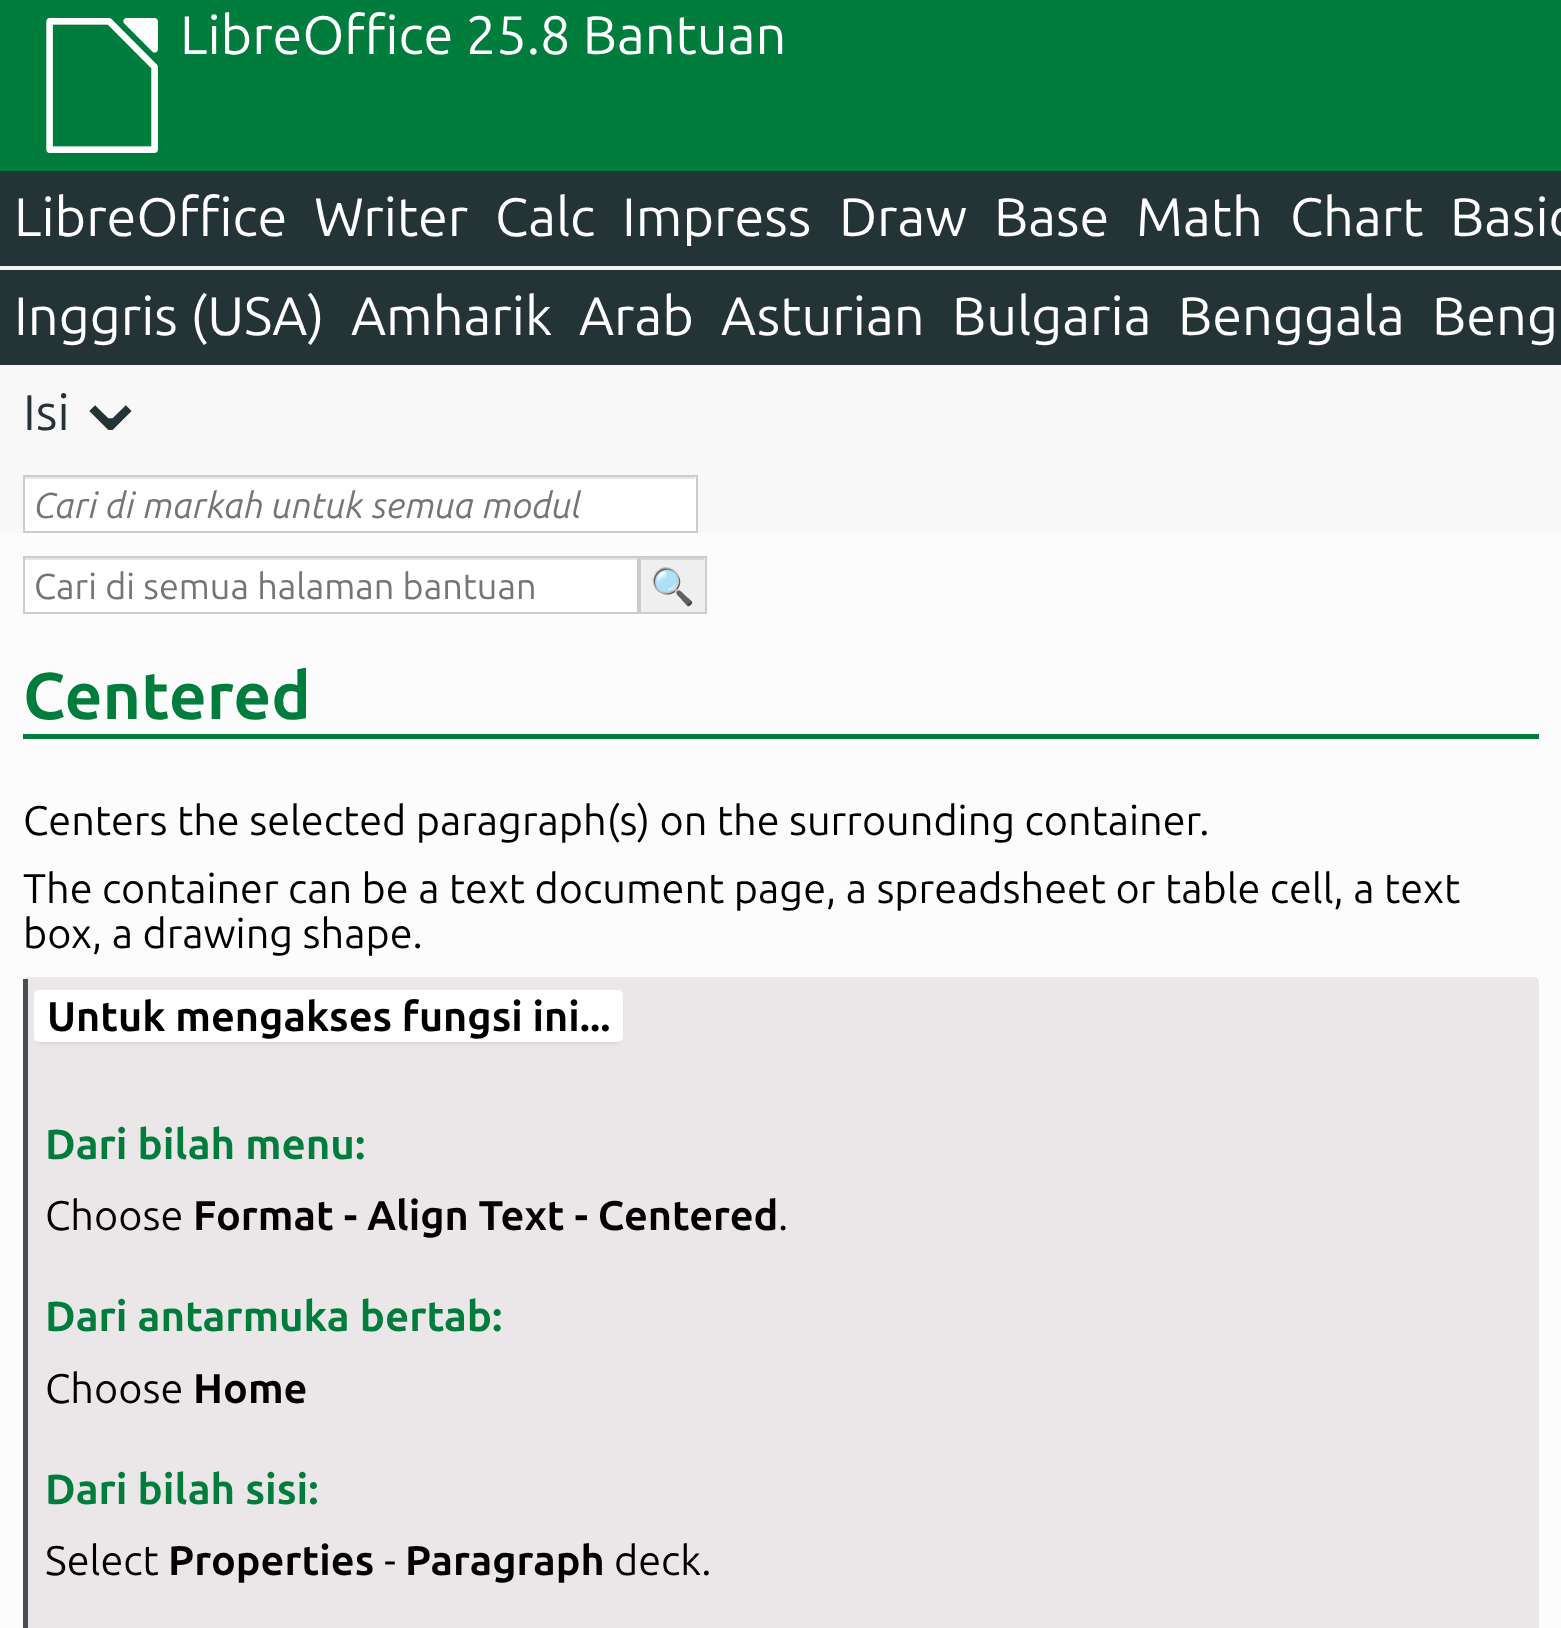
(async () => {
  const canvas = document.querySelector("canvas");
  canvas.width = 1561;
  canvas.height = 1628;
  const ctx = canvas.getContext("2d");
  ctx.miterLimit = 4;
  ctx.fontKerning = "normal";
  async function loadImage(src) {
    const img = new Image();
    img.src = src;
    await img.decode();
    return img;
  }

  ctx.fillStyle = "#f7f8f7";
  ctx.fillRect(0, 0, 1561, 1628);
  ctx.fillStyle = "#007c3c";
  ctx.fillRect(0, 0, 1561, 171);
  ctx.drawImage(await loadImage("img/1.png"), 46, 18, 112, 135);
  for (const [x, y, w, h, color] of [
    [0, 171, 1561, 95, "#233336"],
    [0, 266, 1561, 4, "#f3f3f3"],
    [0, 270, 1561, 95, "#233336"],
    [25, 477, 671, 54, "#ffffff"],
    [25, 477, 670, 2, "#e6e6e6"],
  ]) {
    ctx.fillStyle = color;
    ctx.fillRect(x, y, w, h);
  }
  ctx.strokeStyle = "#cccccc";
  ctx.lineWidth = 2;
  ctx.strokeRect(24, 476, 673, 56);
  for (const [x, y, w, h, color] of [
    [0, 533, 1561, 1095, "#fcfcfc"],
    [25, 560, 612, 52, "#ffffff"],
    [25, 558, 612, 2, "#e6e6e6"],
  ]) {
    ctx.fillStyle = color;
    ctx.fillRect(x, y, w, h);
  }
  ctx.strokeRect(24, 557, 614, 56);
  ctx.fillStyle = "#efefef";
  ctx.fillRect(641, 558, 64, 54);
  ctx.fillStyle = "#d7d7d7";
  ctx.fillRect(641, 558, 63, 2);
  ctx.strokeRect(640, 557, 66, 56);
  ctx.fillStyle = "#007c3c";
  ctx.fillRect(23, 734, 1516, 5);
  ctx.fillStyle = "#ebe7e9";
  ctx.beginPath();
  ctx.roundRect(23, 977, 1516, 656, 5);
  ctx.fill();
  ctx.fillStyle = "#4e4b55";
  ctx.fillRect(23, 979, 5, 649);
  ctx.fillStyle = "rgba(0, 0, 0, 0.2)";
  ctx.filter = "blur(2px)";
  ctx.beginPath();
  ctx.rect(38, 999, 581, 43);
  ctx.fill();
  ctx.filter = "none";
  ctx.fillStyle = "#ffffff";
  ctx.beginPath();
  ctx.roundRect(34, 990, 589, 52, 5);
  ctx.fill();
  ctx.font = "54px Ubuntu";
  for (const [text, x, y] of [
    ["LibreOffice 25.8 Bantuan", 180, 54],
    ["LibreOffice", 14, 236],
    ["Writer", 314, 236],
    ["Calc", 495, 236],
    ["Impress", 622, 236],
    ["Draw", 839, 236],
    ["Base", 994, 236],
    ["Math", 1136, 236],
    ["Chart", 1290, 236],
    ["Basic", 1450, 236],
    ["Inggris (USA)", 14, 335],
    ["Amharik", 351, 335],
    ["Arab", 579, 335],
    ["Asturian", 721, 335],
    ["Bulgaria", 952, 335],
    ["Benggala", 1178, 335],
    ["Beng", 1432, 335],
  ]) {
    ctx.fillText(text, x, y);
  }
  ctx.font = "50px Ubuntu";
  ctx.fillStyle = "#233336";
  ctx.fillText("Isi", 23, 430);
  ctx.font = "99px DejaVu Sans";
  ctx.fillText("⌄", 69, 430);
  ctx.font = "italic 36px Ubuntu";
  ctx.fillStyle = "#757575";
  ctx.fillText("Cari di markah untuk semua modul", 34, 518);
  ctx.font = "36px Ubuntu";
  ctx.fillText("Cari di semua halaman bantuan", 34, 599);
  ctx.font = "36px Noto Color Emoji";
  ctx.fillStyle = "#000000";
  ctx.fillText("🔍", 650, 599);
  ctx.font = "bold 66px Ubuntu";
  ctx.fillStyle = "#007c3c";
  ctx.fillText("Centered", 23, 719);
  ctx.font = "41.4px Ubuntu";
  ctx.fillStyle = "#000000";
  for (const [text, x, y] of [
    ["Centers the selected paragraph(s) on the surrounding container.", 23, 835],
    ["The container can be a text document page, a spreadsheet or table cell, a text", 23, 903],
    ["box, a drawing shape.", 23, 948],
  ]) {
    ctx.fillText(text, x, y);
  }
  ctx.font = "bold 41.4px Ubuntu";
  ctx.fillText("Untuk mengakses fungsi ini...", 47, 1031);
  ctx.font = "bold 42.1px Ubuntu";
  ctx.fillStyle = "#007c3c";
  ctx.fillText("Dari bilah menu:", 45, 1159);
  ctx.font = "41.4px Ubuntu";
  ctx.fillStyle = "#000000";
  ctx.fillText("Choose", 45, 1230);
  ctx.font = "bold 41.4px Ubuntu";
  ctx.fillText("Format - Align Text - Centered", 193, 1230);
  ctx.font = "41.4px Ubuntu";
  ctx.fillText(".", 778, 1230);
  ctx.font = "bold 42.1px Ubuntu";
  ctx.fillStyle = "#007c3c";
  ctx.fillText("Dari antarmuka bertab:", 45, 1331);
  ctx.font = "41.4px Ubuntu";
  ctx.fillStyle = "#000000";
  ctx.fillText("Choose", 45, 1403);
  ctx.font = "bold 41.4px Ubuntu";
  ctx.fillText("Home", 193, 1403);
  ctx.font = "bold 42.1px Ubuntu";
  ctx.fillStyle = "#007c3c";
  ctx.fillText("Dari bilah sisi:", 45, 1504);
  ctx.font = "41.4px Ubuntu";
  ctx.fillStyle = "#000000";
  ctx.fillText("Select", 45, 1575);
  ctx.font = "bold 41.4px Ubuntu";
  ctx.fillText("Properties", 168, 1575);
  ctx.font = "41.4px Ubuntu";
  ctx.fillText("-", 384, 1575);
  ctx.font = "bold 41.4px Ubuntu";
  ctx.fillText("Paragraph", 405, 1575);
  ctx.font = "41.4px Ubuntu";
  ctx.fillText("deck.", 614, 1575);
})();
